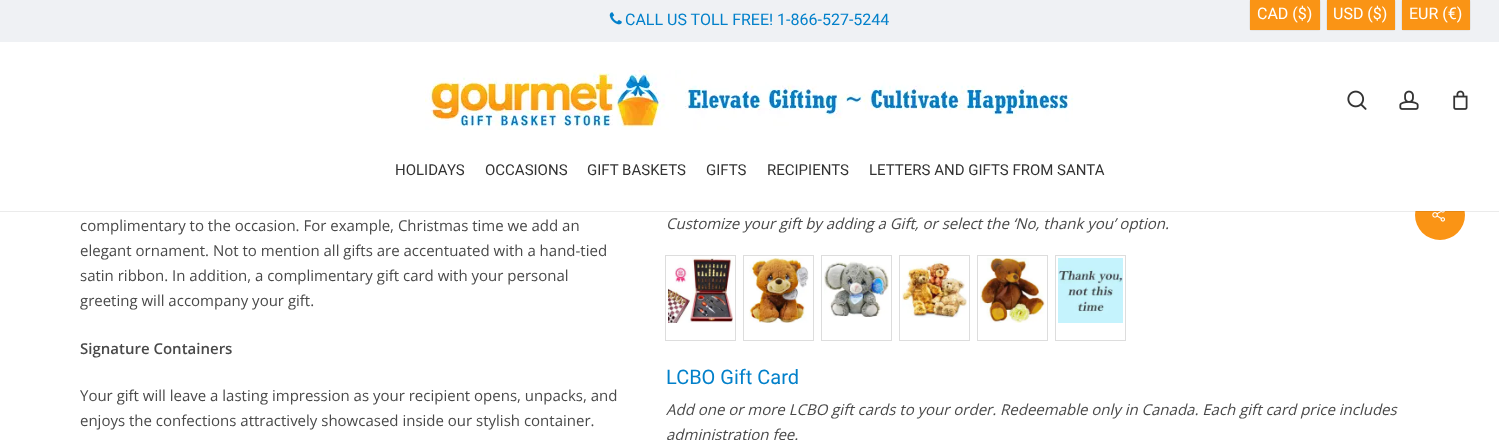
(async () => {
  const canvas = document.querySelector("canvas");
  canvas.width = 1499;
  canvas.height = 440;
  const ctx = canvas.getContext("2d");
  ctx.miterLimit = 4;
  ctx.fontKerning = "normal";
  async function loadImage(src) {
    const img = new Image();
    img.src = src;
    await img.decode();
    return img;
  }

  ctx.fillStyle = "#ffffff";
  ctx.fillRect(0, 0, 1499, 440);
  ctx.fillStyle = "#fa9415";
  ctx.beginPath();
  ctx.arc(1440, 215, 25, 0, Math.PI * 2);
  ctx.fill();
  ctx.drawImage(await loadImage("img/12.png"), 1432, 211, 13, 11);
  for (const [x, y, w, h, color] of [
    [0, 211, 1499, 1, "rgba(0, 0, 0, 0.08)"],
    [1415, 190, 50, 21, "#ffffff"],
    [0, 0, 1499, 42, "#eff1f4"],
  ]) {
    ctx.fillStyle = color;
    ctx.fillRect(x, y, w, h);
  }
  ctx.drawImage(await loadImage("img/1.png"), 609, 12, 13, 13);
  ctx.beginPath();
  ctx.roundRect(1249.5, -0.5, 71, 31, 2.5);
  ctx.strokeStyle = "#e5e5e5";
  ctx.stroke();
  ctx.fillStyle = "#fa9415";
  ctx.fillRect(1250, 0, 70, 30);
  ctx.beginPath();
  ctx.roundRect(1326.5, -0.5, 69, 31, 2.5);
  ctx.stroke();
  ctx.fillRect(1327, 0, 68, 30);
  ctx.beginPath();
  ctx.roundRect(1401.5, -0.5, 69, 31, 2.5);
  ctx.stroke();
  ctx.fillRect(1402, 0, 68, 30);
  ctx.drawImage(await loadImage("img/2.png"), 425, 70, 649, 60);
  ctx.drawImage(await loadImage("img/3.png"), 1347, 90, 20, 20);
  ctx.drawImage(await loadImage("img/4.png"), 1399, 90, 20, 20);
  ctx.drawImage(await loadImage("img/5.png"), 1453, 90, 15, 20);
  ctx.drawImage(await loadImage("img/6.png"), 668, 258, 65, 65);
  ctx.strokeStyle = "#dddddd";
  ctx.strokeRect(665.5, 255.5, 70, 85);
  ctx.drawImage(await loadImage("img/7.png"), 749, 258, 60, 65);
  ctx.strokeRect(743.5, 255.5, 70, 85);
  ctx.drawImage(await loadImage("img/8.png"), 824, 261, 65, 56);
  ctx.strokeRect(821.5, 255.5, 70, 85);
  ctx.drawImage(await loadImage("img/9.png"), 902, 261, 65, 57);
  ctx.strokeRect(899.5, 255.5, 70, 85);
  ctx.drawImage(await loadImage("img/10.png"), 980, 258, 65, 65);
  ctx.strokeRect(977.5, 255.5, 70, 85);
  ctx.drawImage(await loadImage("img/11.png"), 1058, 258, 65, 65);
  ctx.strokeRect(1055.5, 255.5, 70, 85);
  ctx.font = "16px Roboto";
  ctx.fillStyle = "#0280ca";
  ctx.fillText("CALL US TOLL FREE! 1-866-527-5244", 625, 25);
  ctx.fillStyle = "#ffffff";
  for (const [text, x, y] of [
    ["CAD ($)", 1257, 19],
    ["USD ($)", 1333, 19],
    ["EUR (€)", 1409, 19],
  ]) {
    ctx.fillText(text, x, y);
  }
  ctx.font = "15px Roboto";
  ctx.fillStyle = "#333333";
  for (const [text, x, y] of [
    ["HOLIDAYS", 395, 175],
    ["OCCASIONS", 485, 175],
    ["GIFT BASKETS", 587, 175],
    ["GIFTS", 706, 175],
    ["RECIPIENTS", 767, 175],
    ["LETTERS AND GIFTS FROM SANTA", 869, 175],
  ]) {
    ctx.fillText(text, x, y);
  }
  ctx.font = "15px Open Sans";
  ctx.fillStyle = "#494949";
  for (const [text, x, y] of [
    ["complimentary to the occasion. For example, Christmas time we add an", 80, 231],
    ["elegant ornament. Not to mention all gifts are accentuated with a hand-tied", 80, 256],
    ["satin ribbon. In addition, a complimentary gift card with your personal", 80, 281],
    ["greeting will accompany your gift.", 80, 306],
  ]) {
    ctx.fillText(text, x, y);
  }
  ctx.font = "600 15px Open Sans";
  ctx.fillText("Signature Containers", 80, 354);
  ctx.font = "15px Open Sans";
  ctx.fillText("Your gift will leave a lasting impression as your recipient opens, unpacks, and", 80, 401);
  ctx.fillText("enjoys the confections attractively showcased inside our stylish container.", 80, 426);
  ctx.font = "italic 15px Open Sans";
  ctx.fillText("Customize your gift by adding a Gift, or select the ‘No, thank you’ option.", 666, 229);
  ctx.font = "20px Roboto";
  ctx.fillStyle = "#0280ca";
  ctx.fillText("LCBO Gift Card", 666, 384);
  ctx.font = "italic 15px Open Sans";
  ctx.fillStyle = "#494949";
  ctx.fillText("Add one or more LCBO gift cards to your order. Redeemable only in Canada. Each gift card price includes", 666, 415);
  ctx.fillText("administration fee.", 666, 440);
})();
